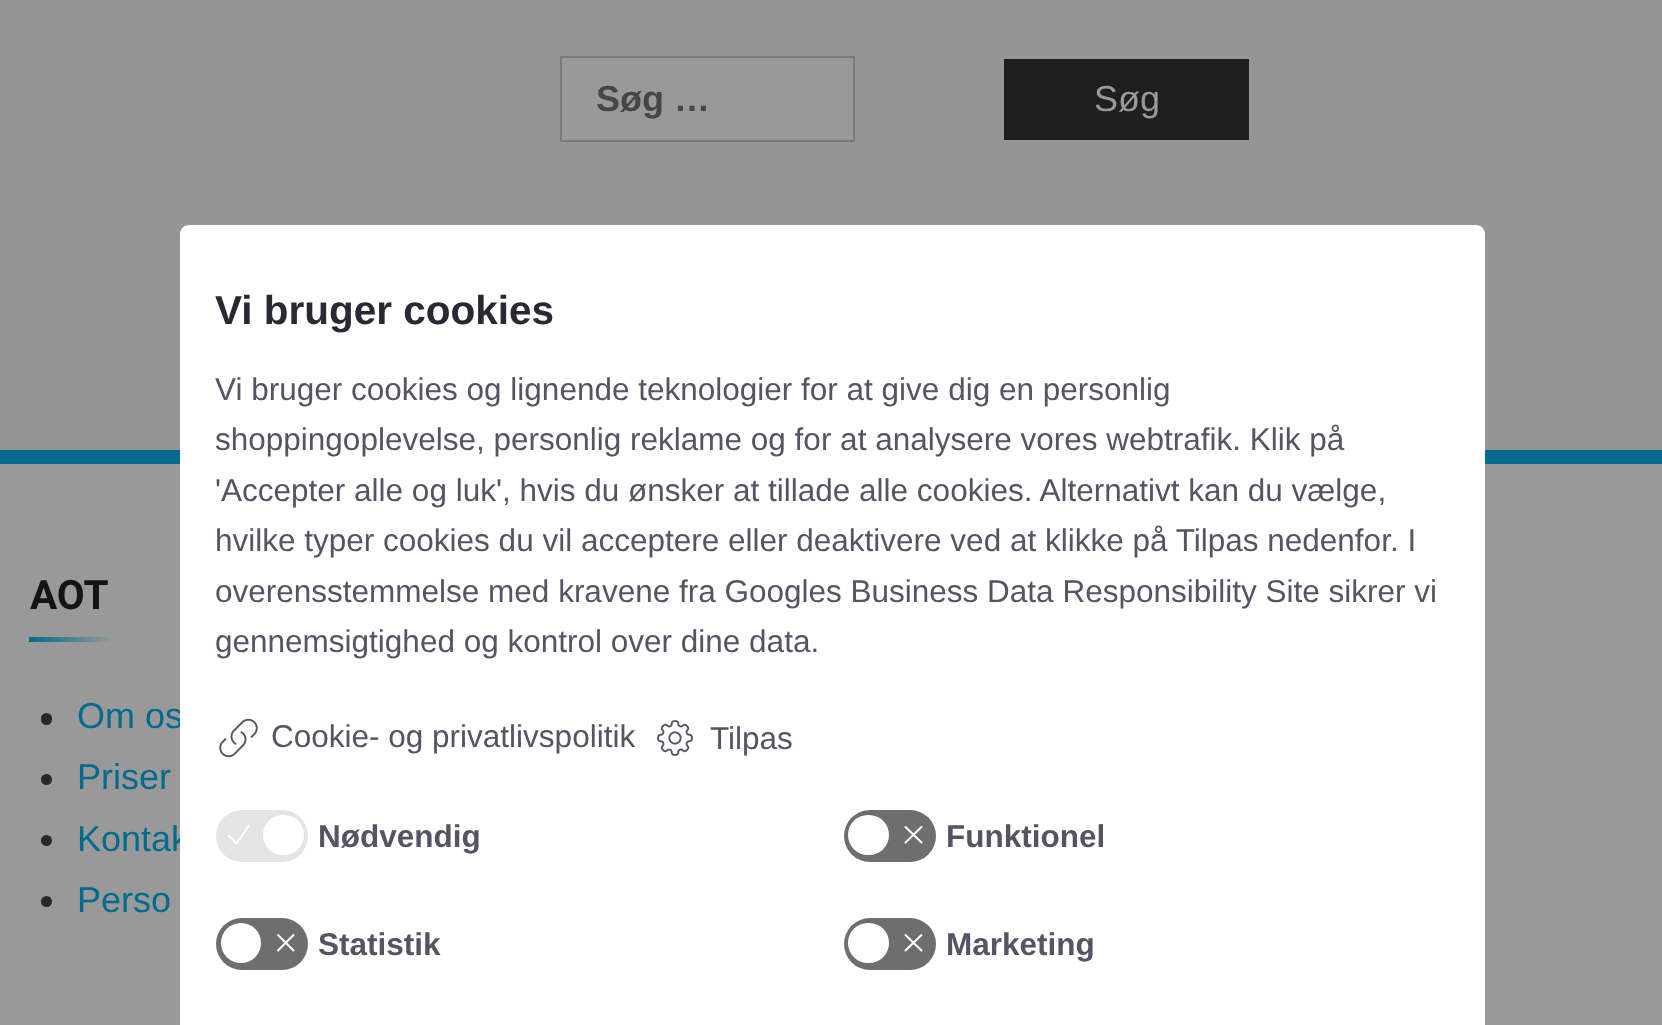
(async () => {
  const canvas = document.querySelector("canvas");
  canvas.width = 1662;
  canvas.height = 1025;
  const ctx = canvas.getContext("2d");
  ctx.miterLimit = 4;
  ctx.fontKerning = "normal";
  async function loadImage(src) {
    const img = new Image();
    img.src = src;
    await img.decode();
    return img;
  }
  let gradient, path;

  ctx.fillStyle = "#959595";
  ctx.fillRect(0, 0, 1662, 1025);
  ctx.fillStyle = "#999999";
  ctx.beginPath();
  ctx.rect(561, 57, 293, 84);
  ctx.fill();
  ctx.strokeStyle = "#7a7a7a";
  ctx.lineWidth = 2;
  ctx.stroke();
  for (const [x, y, w, h, color] of [
    [1004, 59, 245, 81, "#1f1f1f"],
    [0, 464, 1662, 561, "#999999"],
    [0, 450, 1662, 14, "#006b8f"],
  ]) {
    ctx.fillStyle = color;
    ctx.fillRect(x, y, w, h);
  }
  gradient = ctx.createLinearGradient(29, 639, 113, 639);
  gradient.addColorStop(0, "#006b8f");
  gradient.addColorStop(1, "#999999");
  ctx.fillStyle = gradient;
  ctx.fillRect(29, 637, 84, 5);
  ctx.fillStyle = "#282828";
  ctx.beginPath();
  ctx.roundRect(41, 713, 11, 12, 5.5);
  ctx.fill();
  ctx.beginPath();
  ctx.arc(46.5, 779.5, 5.5, 0, Math.PI * 2);
  ctx.fill();
  ctx.beginPath();
  ctx.arc(46.5, 840.5, 5.5, 0, Math.PI * 2);
  ctx.fill();
  ctx.beginPath();
  ctx.arc(46.5, 901.5, 5.5, 0, Math.PI * 2);
  ctx.fill();
  ctx.font = "bold 36px Arimo";
  ctx.fillStyle = "#464646";
  ctx.fillText("Søg …", 596, 111);
  ctx.font = "36px Arimo";
  ctx.fillStyle = "#999999";
  ctx.fillText("Søg", 1094, 111);
  ctx.font = "bold 40.5px Heebo";
  ctx.fillStyle = "#141414";
  ctx.fillText("AOT", 30, 609);
  ctx.font = "36px Arimo";
  ctx.fillStyle = "#006b8f";
  for (const [text, x, y] of [
    ["Om os", 77, 728],
    ["Priser", 77, 789],
    ["Kontak", 77, 851],
    ["Perso", 77, 912],
  ]) {
    ctx.fillText(text, x, y);
  }
  ctx.fillStyle = "#ffffff";
  path = new Path2D("M189 225H1476C1481 225 1485 229 1485 234V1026H180V234C180 229 184 225 189 225Z");
  ctx.fill(path);
  ctx.font = "bold 40.5px Arimo";
  ctx.fillStyle = "#292834";
  ctx.fillText("Vi bruger cookies", 215, 324);
  ctx.font = "31.5px Arimo";
  ctx.fillStyle = "#545465";
  for (const [text, x, y] of [
    ["Vi bruger cookies og lignende teknologier for at give dig en personlig", 215, 400],
    ["shoppingoplevelse, personlig reklame og for at analysere vores webtrafik. Klik på", 215, 450],
    ["'Accepter alle og luk', hvis du ønsker at tillade alle cookies. Alternativt kan du vælge,", 215, 501],
    ["hvilke typer cookies du vil acceptere eller deaktivere ved at klikke på Tilpas nedenfor. I", 215, 551],
    ["overensstemmelse med kravene fra Googles Business Data Responsibility Site sikrer vi", 215, 602],
    ["gennemsigtighed og kontrol over dine data.", 215, 652],
  ]) {
    ctx.fillText(text, x, y);
  }
  ctx.drawImage(await loadImage("img/1.png"), 219, 718, 39, 40);
  ctx.fillText("Cookie- og privatlivspolitik", 271, 747);
  ctx.drawImage(await loadImage("img/2.png"), 657, 720, 36, 36);
  ctx.fillText("Tilpas", 710, 749);
  ctx.fillStyle = "#e4e4e4";
  ctx.beginPath();
  ctx.roundRect(216, 810, 92, 52, 26);
  ctx.fill();
  path = new Path2D("M228.5 835.5L236.5 843.5L248.5 826");
  ctx.strokeStyle = "#ffffff";
  ctx.lineCap = "round";
  ctx.lineJoin = "round";
  ctx.stroke(path);
  ctx.fillStyle = "#ffffff";
  ctx.beginPath();
  ctx.roundRect(263, 815, 41, 40, 20);
  ctx.fill();
  ctx.font = "bold 31.5px Arimo";
  ctx.fillStyle = "#545465";
  ctx.fillText("Nødvendig", 318, 847);
  ctx.fillStyle = "#6e6e6e";
  ctx.beginPath();
  ctx.roundRect(844, 810, 92, 52, 26);
  ctx.fill();
  ctx.fillStyle = "#ffffff";
  ctx.beginPath();
  ctx.roundRect(848, 815, 41, 40, 20);
  ctx.fill();
  path = new Path2D("M905.5 842.5L921.5 827M905.5 827L921.5 842.5");
  ctx.stroke(path);
  ctx.fillStyle = "#545465";
  ctx.fillText("Funktionel", 946, 847);
  ctx.fillStyle = "#6e6e6e";
  ctx.beginPath();
  ctx.roundRect(216, 918, 92, 52, 26);
  ctx.fill();
  ctx.fillStyle = "#ffffff";
  ctx.beginPath();
  ctx.arc(241, 943, 20, 0, Math.PI * 2);
  ctx.fill();
  path = new Path2D("M278 950.5L293.5 935M278 935L293.5 950.5");
  ctx.stroke(path);
  ctx.fillStyle = "#545465";
  ctx.fillText("Statistik", 318, 955);
  ctx.fillStyle = "#6e6e6e";
  ctx.beginPath();
  ctx.roundRect(844, 918, 92, 52, 26);
  ctx.fill();
  ctx.fillStyle = "#ffffff";
  ctx.beginPath();
  ctx.roundRect(848, 923, 41, 40, 20);
  ctx.fill();
  path = new Path2D("M905.5 950.5L921.5 935M905.5 935L921.5 950.5");
  ctx.stroke(path);
  ctx.fillStyle = "#545465";
  ctx.fillText("Marketing", 946, 955);
})();
